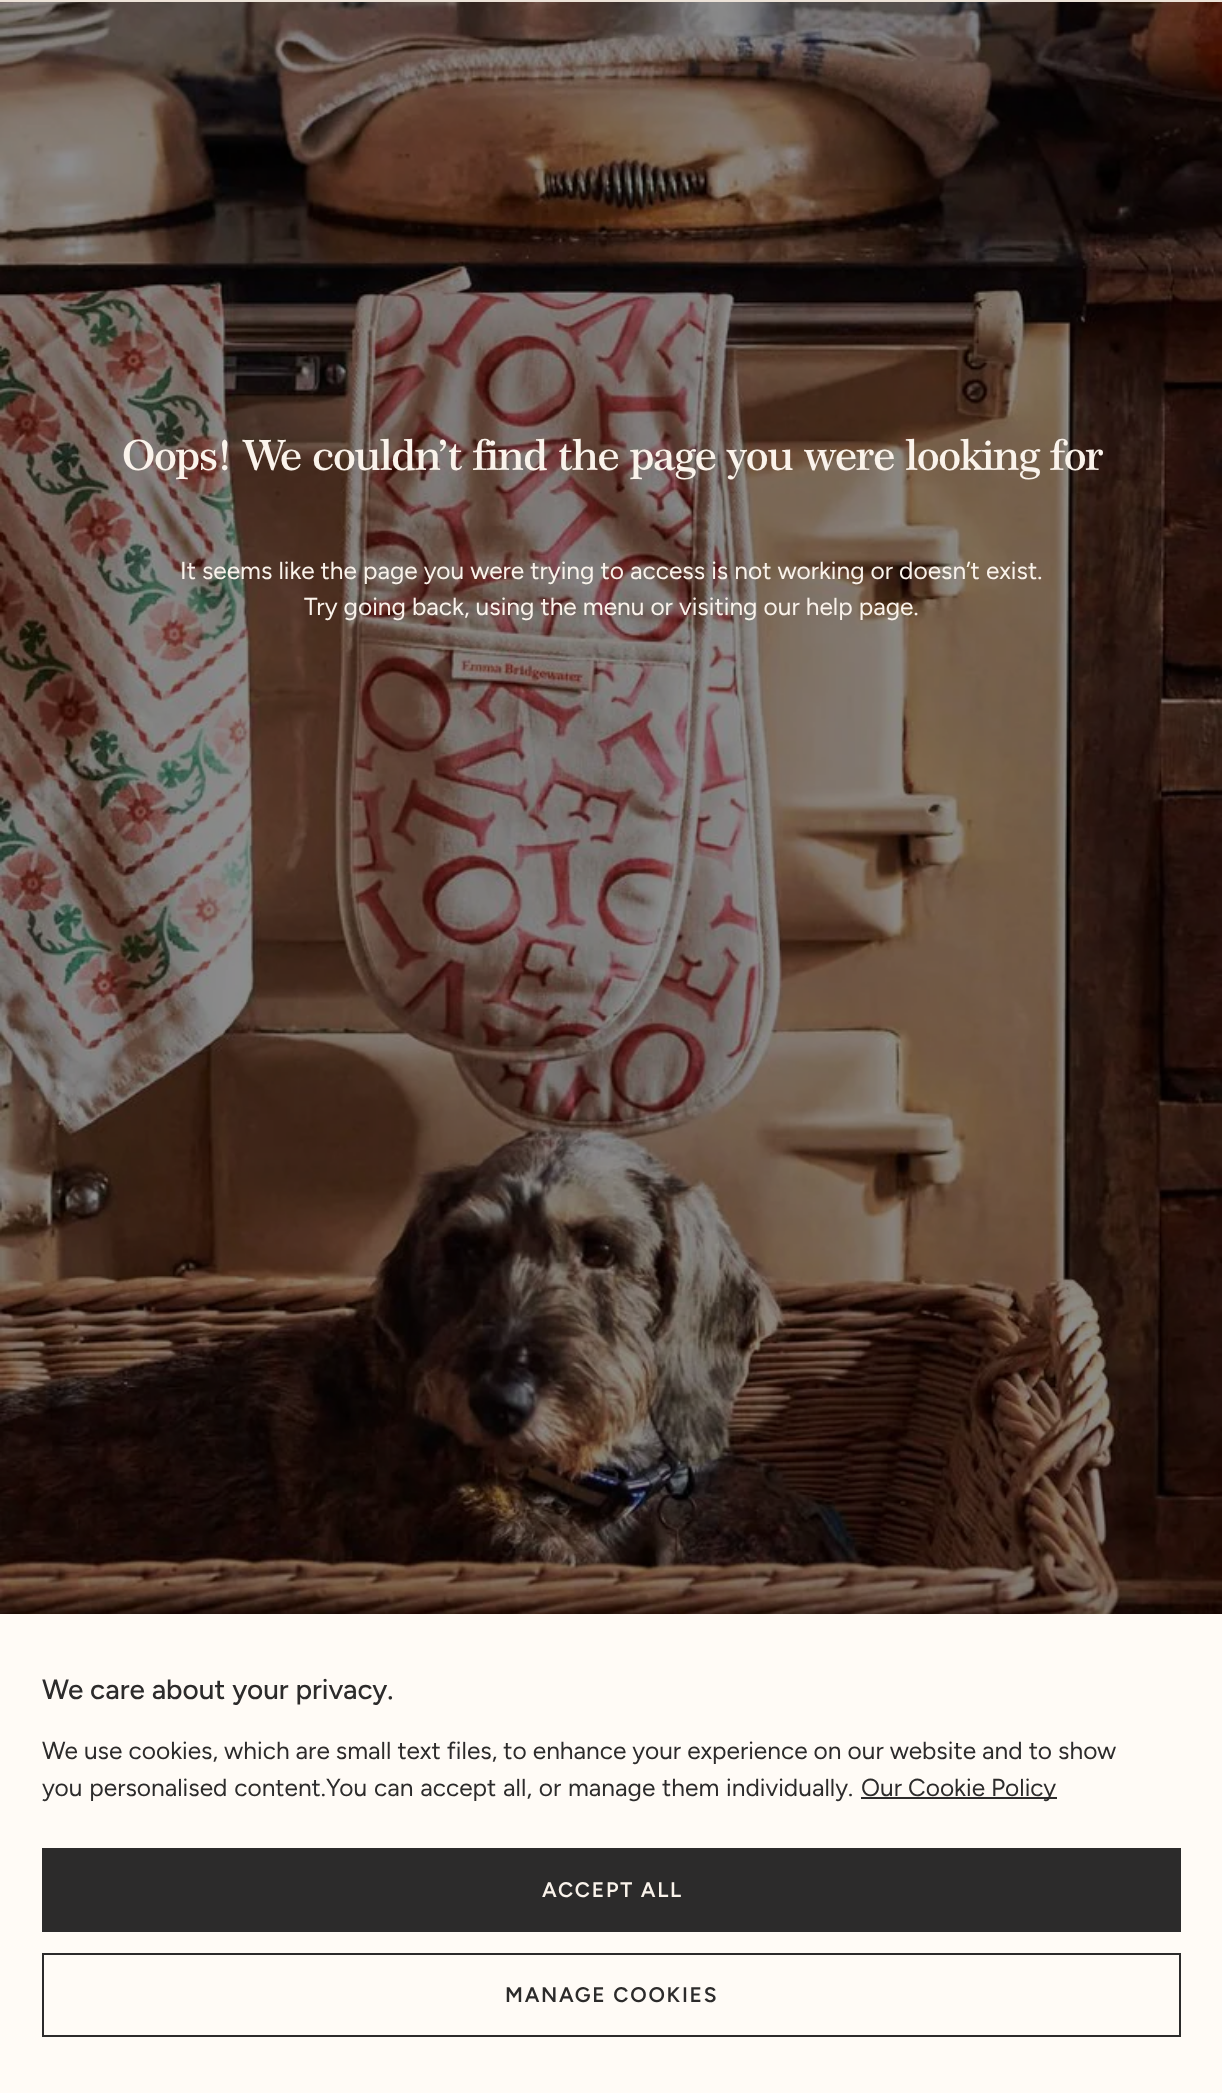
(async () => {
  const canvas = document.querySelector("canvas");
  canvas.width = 1222;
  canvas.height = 2093;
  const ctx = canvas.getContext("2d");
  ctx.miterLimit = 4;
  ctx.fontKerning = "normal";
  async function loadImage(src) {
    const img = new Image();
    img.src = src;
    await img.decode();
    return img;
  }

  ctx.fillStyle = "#ffffff";
  ctx.fillRect(0, 0, 1222, 2093);
  ctx.fillStyle = "#ede3d8";
  ctx.fillRect(0, 0, 1222, 2);
  ctx.drawImage(await loadImage("img/1.png"), 0, 2, 1222, 1612);
  ctx.fillStyle = "rgba(0, 0, 0, 0.2)";
  ctx.filter = "blur(16px)";
  ctx.beginPath();
  ctx.rect(0, 1614, 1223, 479);
  ctx.fill();
  ctx.filter = "none";
  for (const [x, y, w, h, color] of [
    [0, 1614, 1222, 479, "#fffbf6"],
    [861, 1797, 196, 2, "#2c2b2b"],
    [42, 1848, 1139, 84, "#2c2b2b"],
  ]) {
    ctx.fillStyle = color;
    ctx.fillRect(x, y, w, h);
  }
  ctx.strokeStyle = "#2c2b2b";
  ctx.lineWidth = 2;
  ctx.strokeRect(43, 1954, 1137, 82);
  ctx.letterSpacing = "-1.25px";
  ctx.font = "600 42px 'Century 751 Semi'";
  ctx.fillStyle = "#faf3eb";
  ctx.fillText("Oops! We couldn’t find the page you were looking for", 122, 470);
  ctx.letterSpacing = "0px";
  ctx.font = "24.5px Figtree";
  ctx.fillText("It seems like the page you were trying to access is not working or doesn’t exist.", 180, 579);
  ctx.fillText("Try going back, using the menu or visiting our help page.", 304, 615);
  ctx.font = "500 28px Figtree";
  ctx.fillStyle = "#2c2b2b";
  ctx.fillText("We care about your privacy.", 42, 1699);
  ctx.font = "24.5px Figtree";
  ctx.fillText("We use cookies, which are small text files, to enhance your experience on our website and to show", 42, 1759);
  ctx.wordSpacing = "0.75px";
  ctx.fillText("you personalised content.You can accept all, or manage them individually.", 42, 1796);
  ctx.wordSpacing = "0px";
  ctx.fillText("Our Cookie Policy", 861, 1796);
  ctx.letterSpacing = "1.75px";
  ctx.font = "600 21px Figtree";
  ctx.fillStyle = "#faf3eb";
  ctx.fillText("ACCEPT ALL", 542, 1897);
  ctx.fillStyle = "#2c2b2b";
  ctx.fillText("MANAGE COOKIES", 505, 2002);
})();
